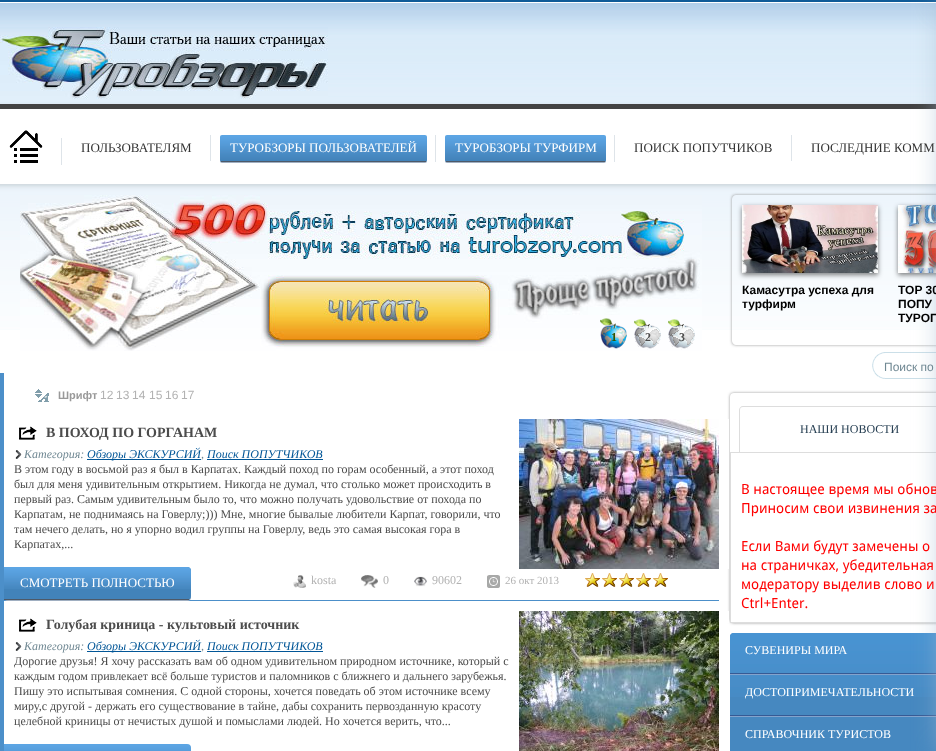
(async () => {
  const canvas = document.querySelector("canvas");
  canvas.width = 936;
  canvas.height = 751;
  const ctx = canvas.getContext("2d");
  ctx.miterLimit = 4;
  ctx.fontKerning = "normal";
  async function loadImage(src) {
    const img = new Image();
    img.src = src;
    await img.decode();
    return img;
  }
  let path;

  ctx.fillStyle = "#ffffff";
  ctx.fillRect(0, 0, 936, 751);
  ctx.drawImage(await loadImage("img/1.png"), 0, 0, 936, 330);
  ctx.drawImage(await loadImage("img/2.png"), 0, 27, 328, 72);
  ctx.save();
  path = new Path2D("M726 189H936V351H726ZM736 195H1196C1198 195 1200 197 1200 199V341C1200 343 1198 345 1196 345H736C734 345 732 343 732 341V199C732 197 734 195 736 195Z");
  ctx.clip(path, "evenodd");
  ctx.fillStyle = "#999999";
  ctx.filter = "blur(1.5px)";
  ctx.beginPath();
  ctx.roundRect(732, 195, 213, 150, 4);
  ctx.fill();
  ctx.filter = "none";
  ctx.restore();
  ctx.fillStyle = "rgba(0, 0, 0, 0.5)";
  ctx.filter = "blur(2.5px)";
  ctx.beginPath();
  ctx.rect(898, 207, 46, 68);
  ctx.fill();
  ctx.filter = "none";
  ctx.drawImage(await loadImage("img/10.png"), 898, 205, 38, 68);
  ctx.drawImage(await loadImage("img/11.png"), 872, 352, 64, 27);
  ctx.fillStyle = "#999999";
  ctx.filter = "blur(1.5px)";
  ctx.beginPath();
  ctx.roundRect(730, 393, 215, 230, 4);
  ctx.fill();
  ctx.filter = "none";
  ctx.fillStyle = "#ffffff";
  ctx.beginPath();
  ctx.roundRect(730, 393, 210, 230, 4);
  ctx.fill();
  ctx.fillRect(731, 621, 1, 1);
  ctx.strokeStyle = "#dddddd";
  ctx.strokeRect(730.5, 452.5, 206, 170);
  ctx.fillStyle = "#dddddd";
  ctx.filter = "blur(0.5px)";
  ctx.beginPath();
  ctx.roundRect(740, 406, 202, 46, 4);
  ctx.fill();
  ctx.filter = "none";
  ctx.fillStyle = "#ffffff";
  path = new Path2D("M743 406H936C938 406 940 408 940 410V452H739V410C739 408 741 406 743 406Z");
  ctx.fill(path);
  ctx.fillStyle = "#dddddd";
  path = new Path2D("M743 406H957C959 406 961 408 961 410V452H739V410C739 408 741 406 743 406ZM743 407H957C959 407 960 408 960 410V452H740V410C740 408 741 407 743 407Z");
  ctx.fill(path, "evenodd");
  ctx.fillStyle = "#a0afc1";
  ctx.filter = "blur(0.5px)";
  ctx.beginPath();
  ctx.roundRect(730, 634, 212, 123, 4);
  ctx.fill();
  ctx.filter = "none";
  ctx.fillStyle = "#4688c0";
  ctx.beginPath();
  ctx.roundRect(730, 633, 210, 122, 4);
  ctx.fill();
  ctx.drawImage(await loadImage("img/25.png"), 730, 633, 206, 64);
  for (const [x, y, w, h, color] of [
    [730, 673, 206, 1, "#365b95"],
    [730, 674, 206, 1, "#84a3cc"],
    [730, 715, 206, 1, "#365b95"],
    [730, 716, 206, 1, "#84a3cc"],
  ]) {
    ctx.fillStyle = color;
    ctx.fillRect(x, y, w, h);
  }
  ctx.fillStyle = "#a2b9d0";
  ctx.filter = "blur(15px)";
  ctx.beginPath();
  ctx.rect(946, 0, 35, 751);
  ctx.fill();
  ctx.filter = "none";
  ctx.fillStyle = "#dee4e9";
  ctx.fillRect(61, 138, 1, 27);
  ctx.drawImage(await loadImage("img/3.png"), 9, 130, 34, 33);
  ctx.fillRect(210, 135, 1, 26);
  ctx.fillRect(435, 135, 1, 27);
  ctx.fillStyle = "#a0afc1";
  ctx.filter = "blur(0.5px)";
  ctx.beginPath();
  ctx.roundRect(220, 136, 207, 27, 2);
  ctx.fill();
  ctx.filter = "none";
  ctx.drawImage(await loadImage("img/4.png"), 220, 135, 207, 27);
  ctx.fillStyle = "#4d5968";
  ctx.fillRect(221, 161, 205, 1);
  ctx.fillStyle = "#dee4e9";
  ctx.fillRect(614, 135, 1, 27);
  ctx.fillStyle = "#a0afc1";
  ctx.filter = "blur(0.5px)";
  ctx.beginPath();
  ctx.roundRect(445, 136, 161, 27, 2);
  ctx.fill();
  ctx.filter = "none";
  ctx.drawImage(await loadImage("img/5.png"), 445, 135, 161, 27);
  ctx.fillStyle = "#4d5968";
  ctx.fillRect(446, 161, 159, 1);
  ctx.fillStyle = "#dee4e9";
  ctx.fillRect(791, 135, 1, 26);
  ctx.drawImage(await loadImage("img/6.png"), 20, 195, 682, 156);
  ctx.drawImage(await loadImage("img/7.png"), 600, 318, 27, 31);
  ctx.drawImage(await loadImage("img/8.png"), 634, 319, 27, 31);
  ctx.drawImage(await loadImage("img/8.png"), 668, 319, 27, 31);
  ctx.fillStyle = "rgba(0, 0, 0, 0.5)";
  ctx.filter = "blur(2.5px)";
  ctx.beginPath();
  ctx.rect(742, 207, 136, 68);
  ctx.fill();
  ctx.filter = "none";
  ctx.drawImage(await loadImage("img/9.png"), 742, 205, 136, 68);
  ctx.fillStyle = "#4c8fc9";
  ctx.fillRect(0, 373, 4, 378);
  ctx.drawImage(await loadImage("img/12.png"), 35, 389, 14, 13);
  ctx.drawImage(await loadImage("img/13.png"), 19, 426, 18, 14);
  ctx.drawImage(await loadImage("img/14.png"), 15, 450, 7, 9);
  for (const [x, y, w, h, color] of [
    [87, 459, 114, 1, "#025697"],
    [207, 459, 116, 1, "#025697"],
    [4, 600, 715, 1, "#4c8fc9"],
  ]) {
    ctx.fillStyle = color;
    ctx.fillRect(x, y, w, h);
  }
  ctx.fillStyle = "#a0afc1";
  ctx.filter = "blur(0.5px)";
  ctx.beginPath();
  ctx.roundRect(4, 568, 187, 33, 4);
  ctx.fill();
  ctx.filter = "none";
  ctx.fillStyle = "#4283ba";
  ctx.beginPath();
  ctx.roundRect(4, 567, 187, 33, [0, 4, 4, 0]);
  ctx.fill();
  ctx.drawImage(await loadImage("img/15.png"), 4, 567, 187, 22);
  ctx.fillStyle = "#4d5968";
  ctx.fillRect(4, 599, 185, 1);
  ctx.drawImage(await loadImage("img/16.png"), 293, 575, 13, 13);
  ctx.drawImage(await loadImage("img/17.png"), 361, 575, 17, 13);
  ctx.drawImage(await loadImage("img/18.png"), 414, 576, 13, 11);
  ctx.drawImage(await loadImage("img/19.png"), 487, 575, 13, 13);
  ctx.drawImage(await loadImage("img/20.png"), 586, 575, 81, 12);
  ctx.drawImage(await loadImage("img/21.png"), 585, 573, 83, 14);
  ctx.fillStyle = "#ffffff";
  ctx.fillRect(727, 419, 2, 150);
  ctx.drawImage(await loadImage("img/22.png"), 519, 419, 200, 150);
  ctx.drawImage(await loadImage("img/13.png"), 19, 618, 18, 14);
  ctx.drawImage(await loadImage("img/14.png"), 15, 642, 7, 9);
  ctx.fillStyle = "#025697";
  ctx.fillRect(87, 651, 114, 1);
  ctx.fillRect(207, 651, 116, 1);
  ctx.fillStyle = "#a0afc1";
  ctx.filter = "blur(0.5px)";
  ctx.beginPath();
  ctx.roundRect(4, 745, 187, 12, 4);
  ctx.fill();
  ctx.filter = "none";
  ctx.drawImage(await loadImage("img/23.png"), 4, 744, 187, 7);
  ctx.fillStyle = "#ffffff";
  ctx.fillRect(727, 611, 2, 12);
  ctx.drawImage(await loadImage("img/24.png"), 519, 611, 200, 140);
  ctx.font = "13px Liberation Serif";
  ctx.fillStyle = "#333333";
  ctx.fillText("ПОЛЬЗОВАТЕЛЯМ", 81, 152);
  ctx.fillStyle = "#ffffff";
  ctx.fillText("ТУРОБЗОРЫ ПОЛЬЗОВАТЕЛЕЙ", 230, 152);
  ctx.fillText("ТУРОБЗОРЫ ТУРФИРМ", 455, 152);
  ctx.fillStyle = "#333333";
  ctx.fillText("ПОИСК ПОПУТЧИКОВ", 634, 152);
  ctx.fillText("ПОСЛЕДНИЕ КОММ", 811, 152);
  ctx.font = "bold 12px Liberation Serif";
  ctx.fillStyle = "#335400";
  ctx.fillText("1", 611, 341);
  ctx.fillStyle = "#4c4c4c";
  ctx.fillText("2", 645, 341);
  ctx.fillText("3", 679, 341);
  ctx.font = "bold 12px Liberation Sans";
  ctx.fillStyle = "#000000";
  for (const [text, x, y] of [
    ["Камасутра успеха для", 742, 294],
    ["турфирм", 742, 308],
    ["TOP 30", 898, 294],
    ["ПОПУ", 898, 308],
    ["ТУРОП", 898, 322],
  ]) {
    ctx.fillText(text, x, y);
  }
  ctx.font = "12px Liberation Sans";
  ctx.fillStyle = "#708893";
  ctx.fillText("Поиск по", 884, 371);
  ctx.font = "bold 11px Liberation Sans";
  ctx.fillStyle = "#999999";
  ctx.fillText("Шрифт", 58, 399);
  ctx.font = "12px Liberation Sans";
  ctx.fillStyle = "#b2b2b2";
  for (const [text, x, y] of [
    ["12", 100, 399],
    ["13", 116, 399],
    ["14", 132, 399],
    ["15", 149, 399],
    ["16", 165, 399],
    ["17", 181, 399],
  ]) {
    ctx.fillText(text, x, y);
  }
  ctx.font = "bold 14px Liberation Serif";
  ctx.fillStyle = "#4c4c4c";
  ctx.fillText("В ПОХОД ПО ГОРГАНАМ", 46, 437);
  ctx.font = "italic 12px Liberation Serif";
  ctx.fillStyle = "#708893";
  ctx.fillText("Категория:", 24, 458);
  ctx.fillStyle = "#025697";
  ctx.fillText("Обзоры ЭКСКУРСИЙ", 87, 458);
  ctx.fillStyle = "#708893";
  ctx.fillText(",", 201, 458);
  ctx.fillStyle = "#025697";
  ctx.fillText("Поиск ПОПУТЧИКОВ", 207, 458);
  ctx.font = "12px Liberation Serif";
  ctx.fillStyle = "#4c4c4c";
  for (const [text, x, y] of [
    ["В этом году в восьмой раз я был в Карпатах. Каждый поход по горам особенный, а этот поход", 14, 473],
    ["был для меня удивительным открытием. Никогда не думал, что столько может происходить в", 14, 488],
    ["первый раз. Самым удивительным было то, что можно получать удовольствие от похода по", 14, 503],
    ["Карпатам, не поднимаясь на Говерлу;))) Мне, многие бывалые любители Карпат, говорили, что", 14, 518],
    ["там нечего делать, но я упорно водил группы на Говерлу, ведь это самая высокая гора в", 14, 533],
    ["Карпатах,...", 14, 548],
  ]) {
    ctx.fillText(text, x, y);
  }
  ctx.font = "13px Liberation Serif";
  ctx.fillStyle = "#ffffff";
  ctx.fillText("СМОТРЕТЬ ПОЛНОСТЬЮ", 20, 587);
  ctx.font = "12px Liberation Serif";
  ctx.fillStyle = "#b2b2b2";
  for (const [text, x, y] of [
    ["kosta", 311, 584],
    ["0", 383, 584],
    ["90602", 432, 584],
  ]) {
    ctx.fillText(text, x, y);
  }
  ctx.font = "11px Liberation Serif";
  ctx.fillText("26 окт 2013", 505, 584);
  ctx.font = "bold 14px Liberation Serif";
  ctx.fillStyle = "#4c4c4c";
  ctx.fillText("Голубая криница - культовый источник", 46, 629);
  ctx.font = "italic 12px Liberation Serif";
  ctx.fillStyle = "#708893";
  ctx.fillText("Категория:", 24, 650);
  ctx.fillStyle = "#025697";
  ctx.fillText("Обзоры ЭКСКУРСИЙ", 87, 650);
  ctx.fillStyle = "#708893";
  ctx.fillText(",", 201, 650);
  ctx.fillStyle = "#025697";
  ctx.fillText("Поиск ПОПУТЧИКОВ", 207, 650);
  ctx.font = "12px Liberation Serif";
  ctx.fillStyle = "#4c4c4c";
  for (const [text, x, y] of [
    ["Дорогие друзья! Я хочу рассказать вам об одном удивительном природном источнике, который с", 14, 665],
    ["каждым годом привлекает всё больше туристов и паломников с ближнего и дальнего зарубежья.", 14, 680],
    ["Пишу это испытывая сомнения. С одной стороны, хочется поведать об этом источнике всему", 14, 695],
    ["миру,с другой - держать его существование в тайне, дабы сохранить первозданную красоту", 14, 710],
    ["целебной криницы от нечистых душой и помыслами людей. Но хочется верить, что...", 14, 725],
  ]) {
    ctx.fillText(text, x, y);
  }
  ctx.fillStyle = "#294154";
  ctx.fillText("НАШИ НОВОСТИ", 800, 433);
  ctx.font = "14px Droid Sans";
  ctx.fillStyle = "#ff0000";
  for (const [text, x, y] of [
    ["В настоящее время мы обнов", 741, 494],
    ["Приносим свои извинения за", 741, 513],
    ["Если Вами будут замечены о", 741, 551],
    ["на страничках, убедительная", 741, 570],
    ["модератору выделив слово и", 741, 589],
    ["Ctrl+Enter.", 741, 608],
  ]) {
    ctx.fillText(text, x, y);
  }
  ctx.font = "12px Liberation Serif";
  ctx.fillStyle = "#ffffff";
  for (const [text, x, y] of [
    ["СУВЕНИРЫ МИРА", 745, 654],
    ["ДОСТОПРИМЕЧАТЕЛЬНОСТИ", 745, 696],
    ["СПРАВОЧНИК ТУРИСТОВ", 745, 738],
  ]) {
    ctx.fillText(text, x, y);
  }
})();
